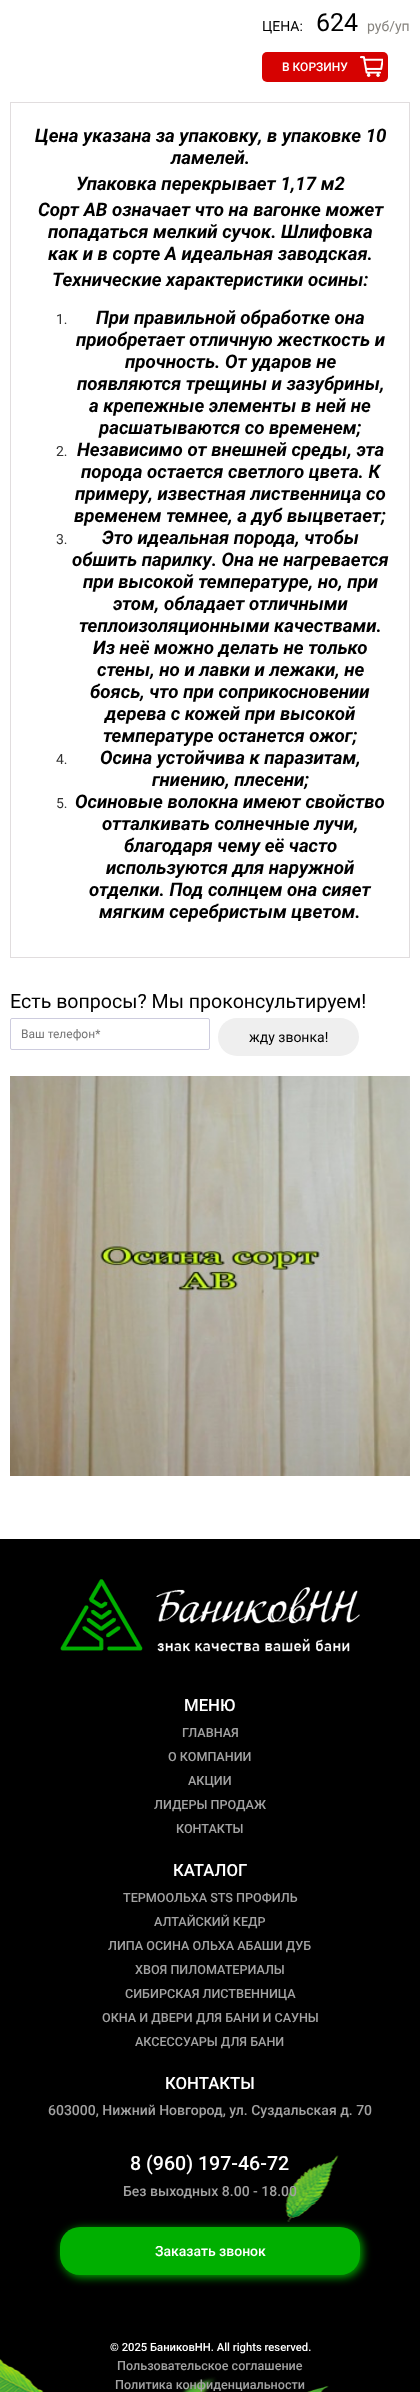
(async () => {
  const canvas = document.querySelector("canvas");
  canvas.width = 420;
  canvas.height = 2392;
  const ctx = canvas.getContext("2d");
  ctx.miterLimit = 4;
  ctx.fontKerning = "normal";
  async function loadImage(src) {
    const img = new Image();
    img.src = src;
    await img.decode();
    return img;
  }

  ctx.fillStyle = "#ffffff";
  ctx.fillRect(0, 0, 420, 2392);
  ctx.fillStyle = "#d60201";
  ctx.beginPath();
  ctx.roundRect(262, 52, 126, 30, 5);
  ctx.fill();
  ctx.drawImage(await loadImage("img/1.png"), 360, 56, 23, 21);
  ctx.strokeStyle = "#e1ddde";
  ctx.strokeRect(10.5, 102.5, 399, 855);
  ctx.beginPath();
  ctx.roundRect(10.5, 1018.5, 199, 31, 1.5);
  ctx.strokeStyle = "#cdccde";
  ctx.stroke();
  ctx.fillStyle = "#efefef";
  ctx.beginPath();
  ctx.roundRect(218, 1018, 141, 38, 19);
  ctx.fill();
  ctx.drawImage(await loadImage("img/2.png"), 10, 1076, 400, 400);
  ctx.fillStyle = "#000000";
  ctx.fillRect(0, 1539, 420, 853);
  ctx.drawImage(await loadImage("img/3.png"), 0, 2155, 339, 237);
  ctx.drawImage(await loadImage("img/4.png"), 60, 1579, 300, 73);
  ctx.fillStyle = "#00af00";
  ctx.filter = "blur(5px)";
  ctx.beginPath();
  ctx.roundRect(62, 2229, 300, 48, 20);
  ctx.fill();
  ctx.filter = "none";
  ctx.beginPath();
  ctx.roundRect(60, 2227, 300, 48, 20);
  ctx.fill();
  ctx.font = "14px Roboto";
  ctx.fillStyle = "#000000";
  ctx.fillText("ЦЕНА:", 262, 31);
  ctx.font = "25px Roboto";
  ctx.fillText("624", 316, 31);
  ctx.font = "14px Roboto";
  ctx.fillStyle = "#87847f";
  ctx.fillText("руб/уп", 367, 31);
  ctx.font = "500 12px Roboto";
  ctx.fillStyle = "#ffffff";
  ctx.fillText("В КОРЗИНУ", 282, 71);
  ctx.font = "italic bold 18.7px Roboto";
  ctx.fillStyle = "#000000";
  for (const [text, x, y] of [
    ["Цена указана за упаковку, в упаковке 10", 35, 142],
    ["ламелей.", 171, 164],
    ["Упаковка перекрывает 1,17 м2", 76, 190],
    ["Сорт АВ означает что на вагонке может", 38, 216],
    ["попадаться мелкий сучок. Шлифовка", 48, 238],
    ["как и в сорте А идеальная заводская.", 48, 260],
    ["Технические характеристики осины:", 52, 286],
  ]) {
    ctx.fillText(text, x, y);
  }
  ctx.font = "14px Roboto";
  ctx.fillStyle = "#333333";
  ctx.fillText("1.", 56, 324);
  ctx.font = "italic bold 18.7px Roboto";
  ctx.fillStyle = "#000000";
  for (const [text, x, y] of [
    ["При правильной обработке она", 96, 324],
    ["приобретает отличную жесткость и", 76, 346],
    ["прочность. От ударов не", 125, 368],
    ["появляются трещины и зазубрины,", 77, 390],
    ["а крепежные элементы в ней не", 89, 412],
    ["расшатываются со временем;", 99, 434],
  ]) {
    ctx.fillText(text, x, y);
  }
  ctx.font = "14px Roboto";
  ctx.fillStyle = "#333333";
  ctx.fillText("2.", 56, 456);
  ctx.font = "italic bold 18.7px Roboto";
  ctx.fillStyle = "#000000";
  for (const [text, x, y] of [
    ["Независимо от внешней среды, эта", 77, 456],
    ["порода остается светлого цвета. К", 81, 478],
    ["примеру, известная лиственница со", 75, 500],
    ["временем темнее, а дуб выцветает;", 74, 522],
  ]) {
    ctx.fillText(text, x, y);
  }
  ctx.font = "14px Roboto";
  ctx.fillStyle = "#333333";
  ctx.fillText("3.", 56, 544);
  ctx.font = "italic bold 18.7px Roboto";
  ctx.fillStyle = "#000000";
  for (const [text, x, y] of [
    ["Это идеальная порода, чтобы", 102, 544],
    ["обшить парилку. Она не нагревается", 72, 566],
    ["при высокой температуре, но, при", 83, 588],
    ["этом, обладает отличными", 113, 610],
    ["теплоизоляционными качествами.", 79, 632],
    ["Из неё можно делать не только", 93, 654],
    ["стены, но и лавки и лежаки, не", 97, 676],
    ["боясь, что при соприкосновении", 90, 698],
    ["дерева с кожей при высокой", 105, 720],
    ["температуре останется ожог;", 103, 742],
  ]) {
    ctx.fillText(text, x, y);
  }
  ctx.font = "14px Roboto";
  ctx.fillStyle = "#333333";
  ctx.fillText("4.", 56, 764);
  ctx.font = "italic bold 18.7px Roboto";
  ctx.fillStyle = "#000000";
  ctx.fillText("Осина устойчива к паразитам,", 100, 764);
  ctx.fillText("гниению, плесени;", 152, 786);
  ctx.font = "14px Roboto";
  ctx.fillStyle = "#333333";
  ctx.fillText("5.", 56, 808);
  ctx.font = "italic bold 18.7px Roboto";
  ctx.fillStyle = "#000000";
  for (const [text, x, y] of [
    ["Осиновые волокна имеют свойство", 75, 808],
    ["отталкивать солнечные лучи,", 102, 830],
    ["благодаря чему её часто", 124, 852],
    ["используются для наружной", 106, 874],
    ["отделки. Под солнцем она сияет", 89, 896],
    ["мягким серебристым цветом.", 99, 918],
  ]) {
    ctx.fillText(text, x, y);
  }
  ctx.font = "19.6px Roboto";
  ctx.fillText("Есть вопросы? Мы проконсультируем!", 10, 1008);
  ctx.font = "12px Roboto";
  ctx.fillStyle = "#757575";
  ctx.fillText("Ваш телефон*", 21, 1038);
  ctx.font = "14px Roboto";
  ctx.fillStyle = "#000000";
  ctx.fillText("жду звонка!", 249, 1042);
  ctx.font = "500 16.75px Roboto";
  ctx.fillStyle = "#ffffff";
  ctx.fillText("МЕНЮ", 184, 1711);
  ctx.font = "500 12.6px Roboto";
  ctx.fillStyle = "#a2a2a2";
  for (const [text, x, y] of [
    ["ГЛАВНАЯ", 182, 1737],
    ["О КОМПАНИИ", 168, 1761],
    ["АКЦИИ", 188, 1785],
    ["ЛИДЕРЫ ПРОДАЖ", 154, 1809],
    ["КОНТАКТЫ", 176, 1833],
  ]) {
    ctx.fillText(text, x, y);
  }
  ctx.font = "500 16.75px Roboto";
  ctx.fillStyle = "#ffffff";
  ctx.fillText("КАТАЛОГ", 173, 1876);
  ctx.font = "500 12.6px Roboto";
  ctx.fillStyle = "#a2a2a2";
  for (const [text, x, y] of [
    ["ТЕРМООЛЬХА STS ПРОФИЛЬ", 123, 1902],
    ["АЛТАЙСКИЙ КЕДР", 154, 1926],
    ["ЛИПА ОСИНА ОЛЬХА АБАШИ ДУБ", 108, 1950],
    ["ХВОЯ ПИЛОМАТЕРИАЛЫ", 135, 1974],
    ["СИБИРСКАЯ ЛИСТВЕННИЦА", 125, 1998],
    ["ОКНА И ДВЕРИ ДЛЯ БАНИ И САУНЫ", 102, 2022],
    ["АКСЕССУАРЫ ДЛЯ БАНИ", 135, 2046],
  ]) {
    ctx.fillText(text, x, y);
  }
  ctx.font = "500 16.75px Roboto";
  ctx.fillStyle = "#ffffff";
  ctx.fillText("КОНТАКТЫ", 165, 2089);
  ctx.font = "500 14px Roboto";
  ctx.fillStyle = "#a2a2a2";
  ctx.fillText("603000, Нижний Новгород, ул. Суздальская д. 70", 48, 2115);
  ctx.font = "500 19.6px Roboto";
  ctx.fillStyle = "#ffffff";
  ctx.fillText("8 (960) 197-46-72", 130, 2170);
  ctx.font = "500 14px Roboto";
  ctx.fillStyle = "#a2a2a2";
  ctx.fillText("Без выходных 8.00 - 18.00", 123, 2196);
  ctx.fillStyle = "#ffffff";
  ctx.fillText("Заказать звонок", 155, 2256);
  ctx.font = "500 11.25px Roboto";
  ctx.fillText("© 2025 БаниковНН. All rights reserved.", 110, 2351);
  ctx.font = "500 12.6px Roboto";
  ctx.fillStyle = "#a2a2a2";
  ctx.fillText("Пользовательское соглашение", 117, 2370);
  ctx.fillText("Политика конфиденциальности", 115, 2389);
})();
